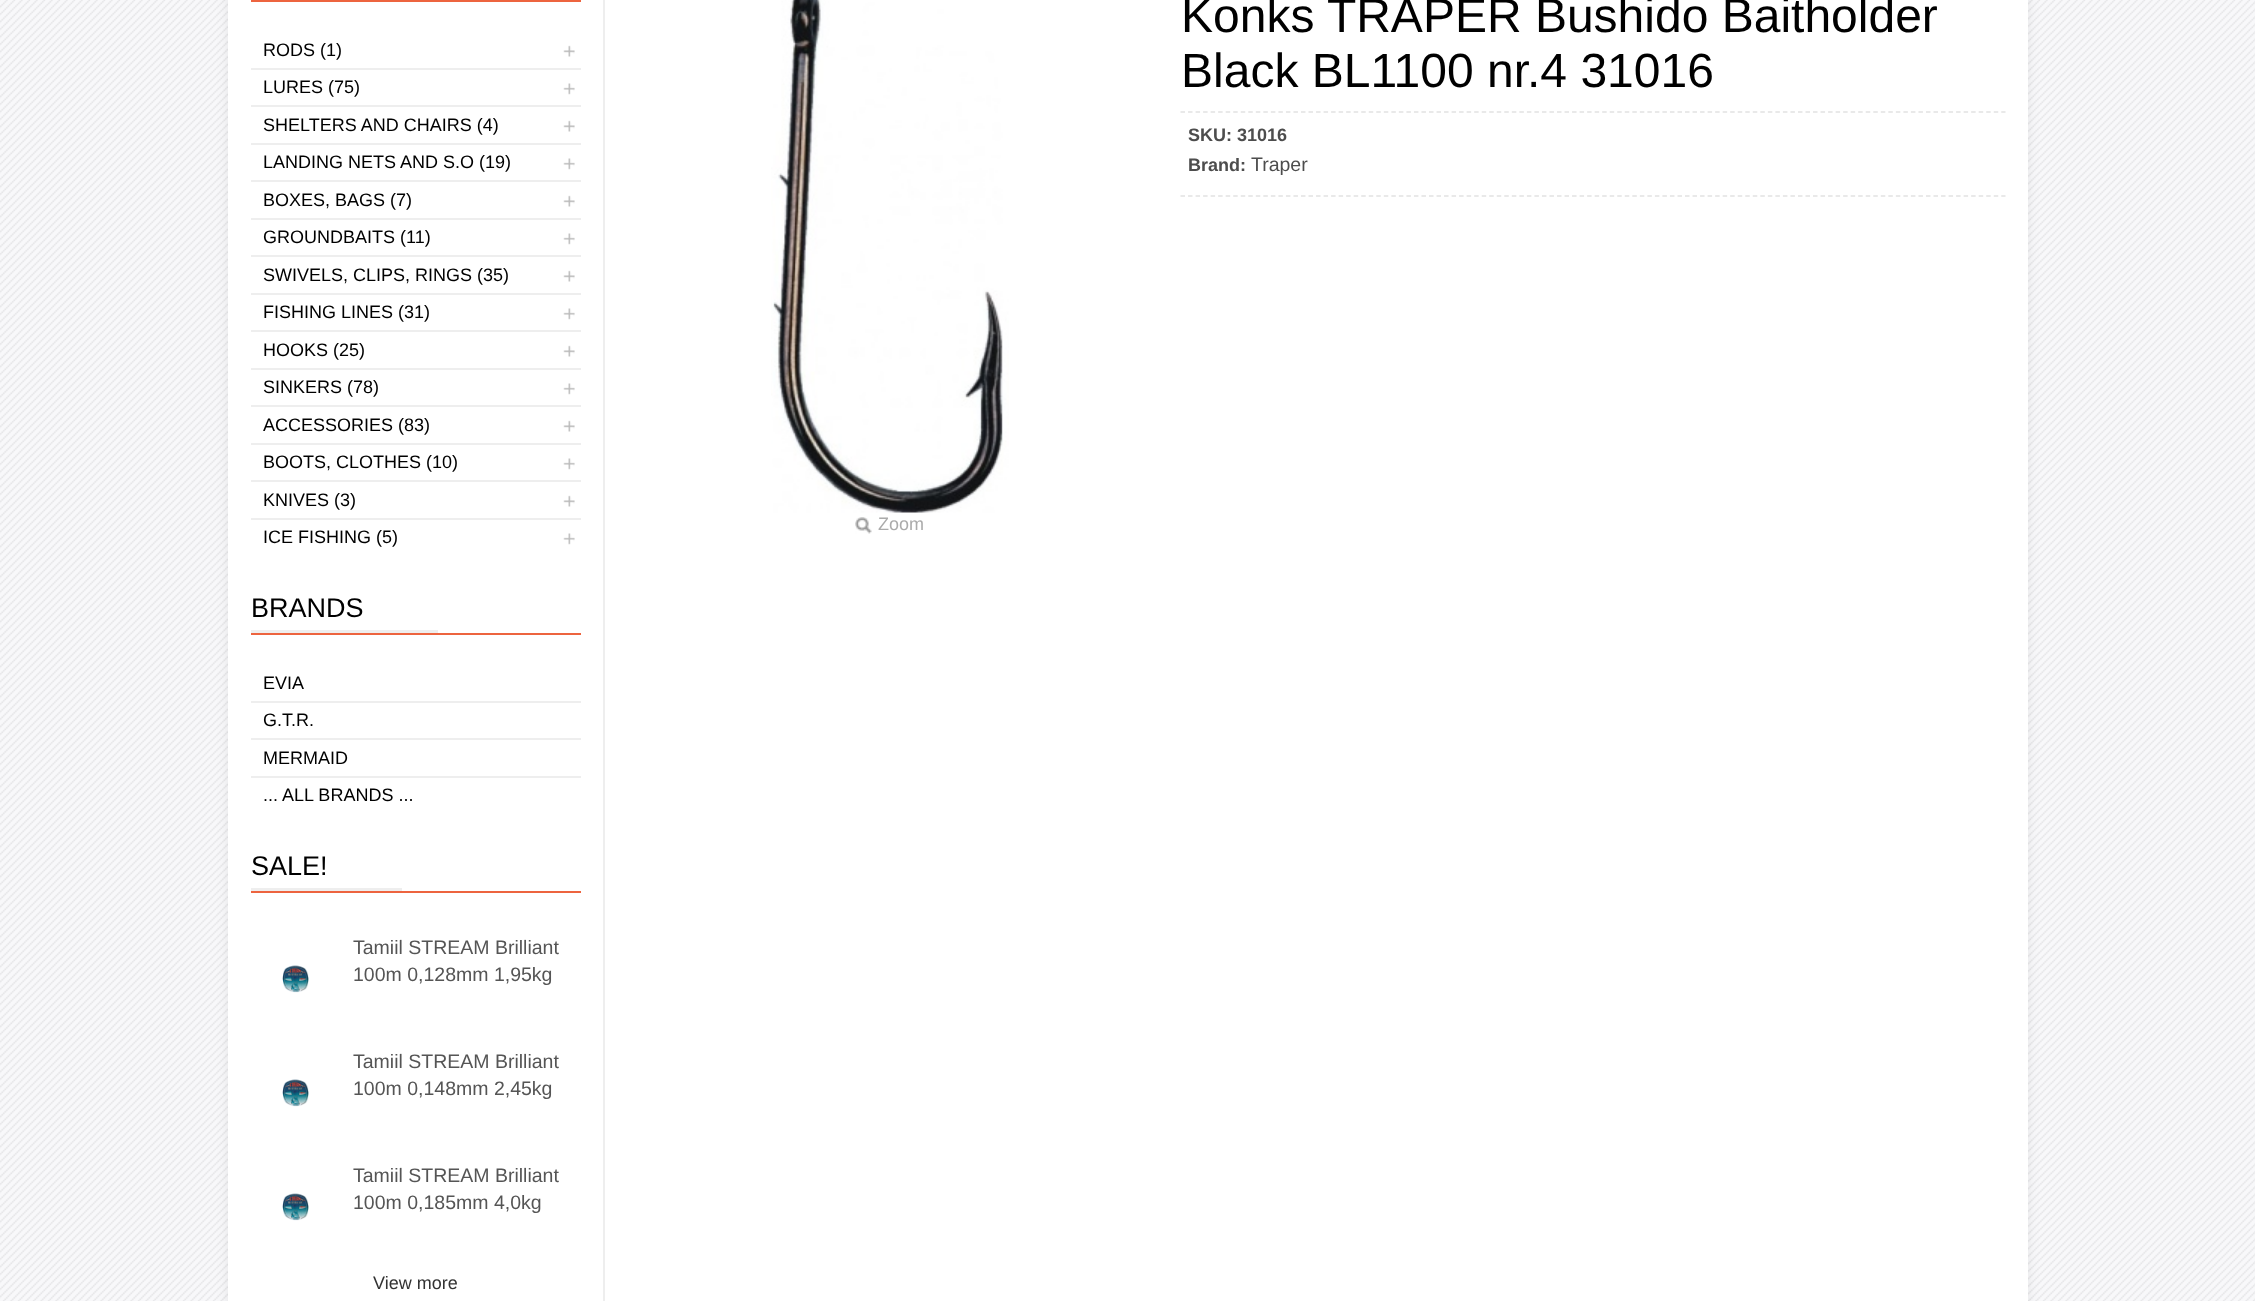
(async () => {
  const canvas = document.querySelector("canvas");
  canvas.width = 2255;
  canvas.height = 1301;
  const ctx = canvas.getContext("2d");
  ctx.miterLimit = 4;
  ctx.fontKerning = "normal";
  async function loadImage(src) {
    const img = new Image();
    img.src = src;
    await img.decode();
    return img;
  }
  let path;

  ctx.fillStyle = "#f8f8fa";
  ctx.fillRect(0, 0, 2255, 1301);
  ctx.drawImage(await loadImage("img/1.png"), 0, 0, 2255, 1301);
  ctx.fillStyle = "rgba(0, 0, 0, 0.08)";
  ctx.filter = "blur(6px)";
  ctx.beginPath();
  ctx.roundRect(228, -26, 1800, 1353, 8);
  ctx.fill();
  ctx.filter = "none";
  for (const [x, y, w, h, color] of [
    [228, 0, 1800, 1301, "#ffffff"],
    [603, 0, 2, 1301, "#eeeeee"],
    [251, 0, 330, 2, "#ed643f"],
  ]) {
    ctx.fillStyle = color;
    ctx.fillRect(x, y, w, h);
  }
  ctx.drawImage(await loadImage("img/2.png"), 563, 45, 12, 12);
  ctx.fillStyle = "#eeeeee";
  ctx.fillRect(251, 68, 330, 2);
  ctx.drawImage(await loadImage("img/3.png"), 563, 83, 12, 12);
  ctx.fillRect(251, 105, 330, 2);
  ctx.drawImage(await loadImage("img/2.png"), 563, 120, 12, 12);
  ctx.fillRect(251, 143, 330, 2);
  ctx.drawImage(await loadImage("img/3.png"), 563, 158, 12, 12);
  ctx.fillRect(251, 180, 330, 2);
  ctx.drawImage(await loadImage("img/2.png"), 563, 195, 12, 12);
  ctx.fillRect(251, 218, 330, 2);
  ctx.drawImage(await loadImage("img/3.png"), 563, 233, 12, 12);
  ctx.fillRect(251, 255, 330, 2);
  ctx.drawImage(await loadImage("img/2.png"), 563, 270, 12, 12);
  ctx.fillRect(251, 293, 330, 2);
  ctx.drawImage(await loadImage("img/3.png"), 563, 308, 12, 12);
  ctx.fillRect(251, 330, 330, 2);
  ctx.drawImage(await loadImage("img/2.png"), 563, 345, 12, 12);
  ctx.fillRect(251, 368, 330, 2);
  ctx.drawImage(await loadImage("img/3.png"), 563, 383, 12, 12);
  ctx.fillRect(251, 405, 330, 2);
  ctx.drawImage(await loadImage("img/2.png"), 563, 420, 12, 12);
  ctx.fillRect(251, 443, 330, 2);
  ctx.drawImage(await loadImage("img/3.png"), 563, 458, 12, 12);
  ctx.fillRect(251, 480, 330, 2);
  ctx.drawImage(await loadImage("img/2.png"), 563, 495, 12, 12);
  ctx.fillRect(251, 518, 330, 2);
  ctx.drawImage(await loadImage("img/3.png"), 563, 533, 12, 12);
  for (const [x, y, w, h, color] of [
    [251, 633, 330, 2, "#ed643f"],
    [251, 630, 187, 3, "#eeeeee"],
    [251, 701, 330, 2, "#eeeeee"],
    [251, 738, 330, 2, "#eeeeee"],
    [251, 776, 330, 2, "#eeeeee"],
    [251, 891, 330, 2, "#ed643f"],
    [251, 888, 151, 3, "#eeeeee"],
  ]) {
    ctx.fillStyle = color;
    ctx.fillRect(x, y, w, h);
  }
  ctx.drawImage(await loadImage("img/4.png"), 282, 965, 27, 28);
  ctx.drawImage(await loadImage("img/5.png"), 282, 1079, 27, 28);
  ctx.drawImage(await loadImage("img/6.png"), 282, 1193, 27, 28);
  path = new Path2D("M1180.5 112H2005.5");
  ctx.strokeStyle = "#e2e2e2";
  ctx.lineWidth = 1.5;
  ctx.setLineDash([4.5, 3.03]);
  ctx.stroke(path);
  path = new Path2D("M1180.5 196H2005.5");
  ctx.stroke(path);
  ctx.drawImage(await loadImage("img/7.png"), 771, 0, 238, 513);
  ctx.drawImage(await loadImage("img/8.png"), 855, 517, 17, 17);
  ctx.font = "18px Liberation Sans";
  ctx.fillStyle = "#000000";
  for (const [text, x, y] of [
    ["RODS (1)", 263, 56],
    ["LURES (75)", 263, 93],
    ["SHELTERS AND CHAIRS (4)", 263, 131],
    ["LANDING NETS AND S.O (19)", 263, 168],
    ["BOXES, BAGS (7)", 263, 206],
    ["GROUNDBAITS (11)", 263, 243],
    ["SWIVELS, CLIPS, RINGS (35)", 263, 281],
    ["FISHING LINES (31)", 263, 318],
    ["HOOKS (25)", 263, 356],
    ["SINKERS (78)", 263, 393],
    ["ACCESSORIES (83)", 263, 431],
    ["BOOTS, CLOTHES (10)", 263, 468],
    ["KNIVES (3)", 263, 506],
    ["ICE FISHING (5)", 263, 543],
  ]) {
    ctx.fillText(text, x, y);
  }
  ctx.font = "27px Liberation Sans";
  ctx.fillText("BRANDS", 251, 617);
  ctx.font = "18px Liberation Sans";
  for (const [text, x, y] of [
    ["EVIA", 263, 689],
    ["G.T.R.", 263, 726],
    ["MERMAID", 263, 764],
    ["... ALL BRANDS ...", 263, 801],
  ]) {
    ctx.fillText(text, x, y);
  }
  ctx.font = "27px Liberation Sans";
  ctx.fillText("SALE!", 251, 875);
  ctx.font = "19.5px Liberation Sans";
  ctx.fillStyle = "#555555";
  for (const [text, x, y] of [
    ["Tamiil STREAM Brilliant", 353, 954],
    ["100m 0,128mm 1,95kg", 353, 981],
    ["Tamiil STREAM Brilliant", 353, 1068],
    ["100m 0,148mm 2,45kg", 353, 1095],
    ["Tamiil STREAM Brilliant", 353, 1182],
    ["100m 0,185mm 4,0kg", 353, 1209],
  ]) {
    ctx.fillText(text, x, y);
  }
  ctx.font = "18px Liberation Sans";
  ctx.fillStyle = "#333333";
  ctx.fillText("View more", 373, 1289);
  ctx.font = "48px Liberation Sans";
  ctx.fillStyle = "#000000";
  ctx.fillText("Konks TRAPER Bushido Baitholder", 1181, 32);
  ctx.fillText("Black BL1100 nr.4 31016", 1181, 87);
  ctx.font = "bold 18px Liberation Sans";
  ctx.fillStyle = "#4d4d4d";
  ctx.fillText("SKU: 31016", 1188, 141);
  ctx.fillText("Brand:", 1188, 171);
  ctx.font = "19.5px Liberation Sans";
  ctx.fillText("Traper", 1251, 171);
  ctx.font = "18px Liberation Sans";
  ctx.fillStyle = "#ababab";
  ctx.fillText("Zoom", 878, 530);
})();
